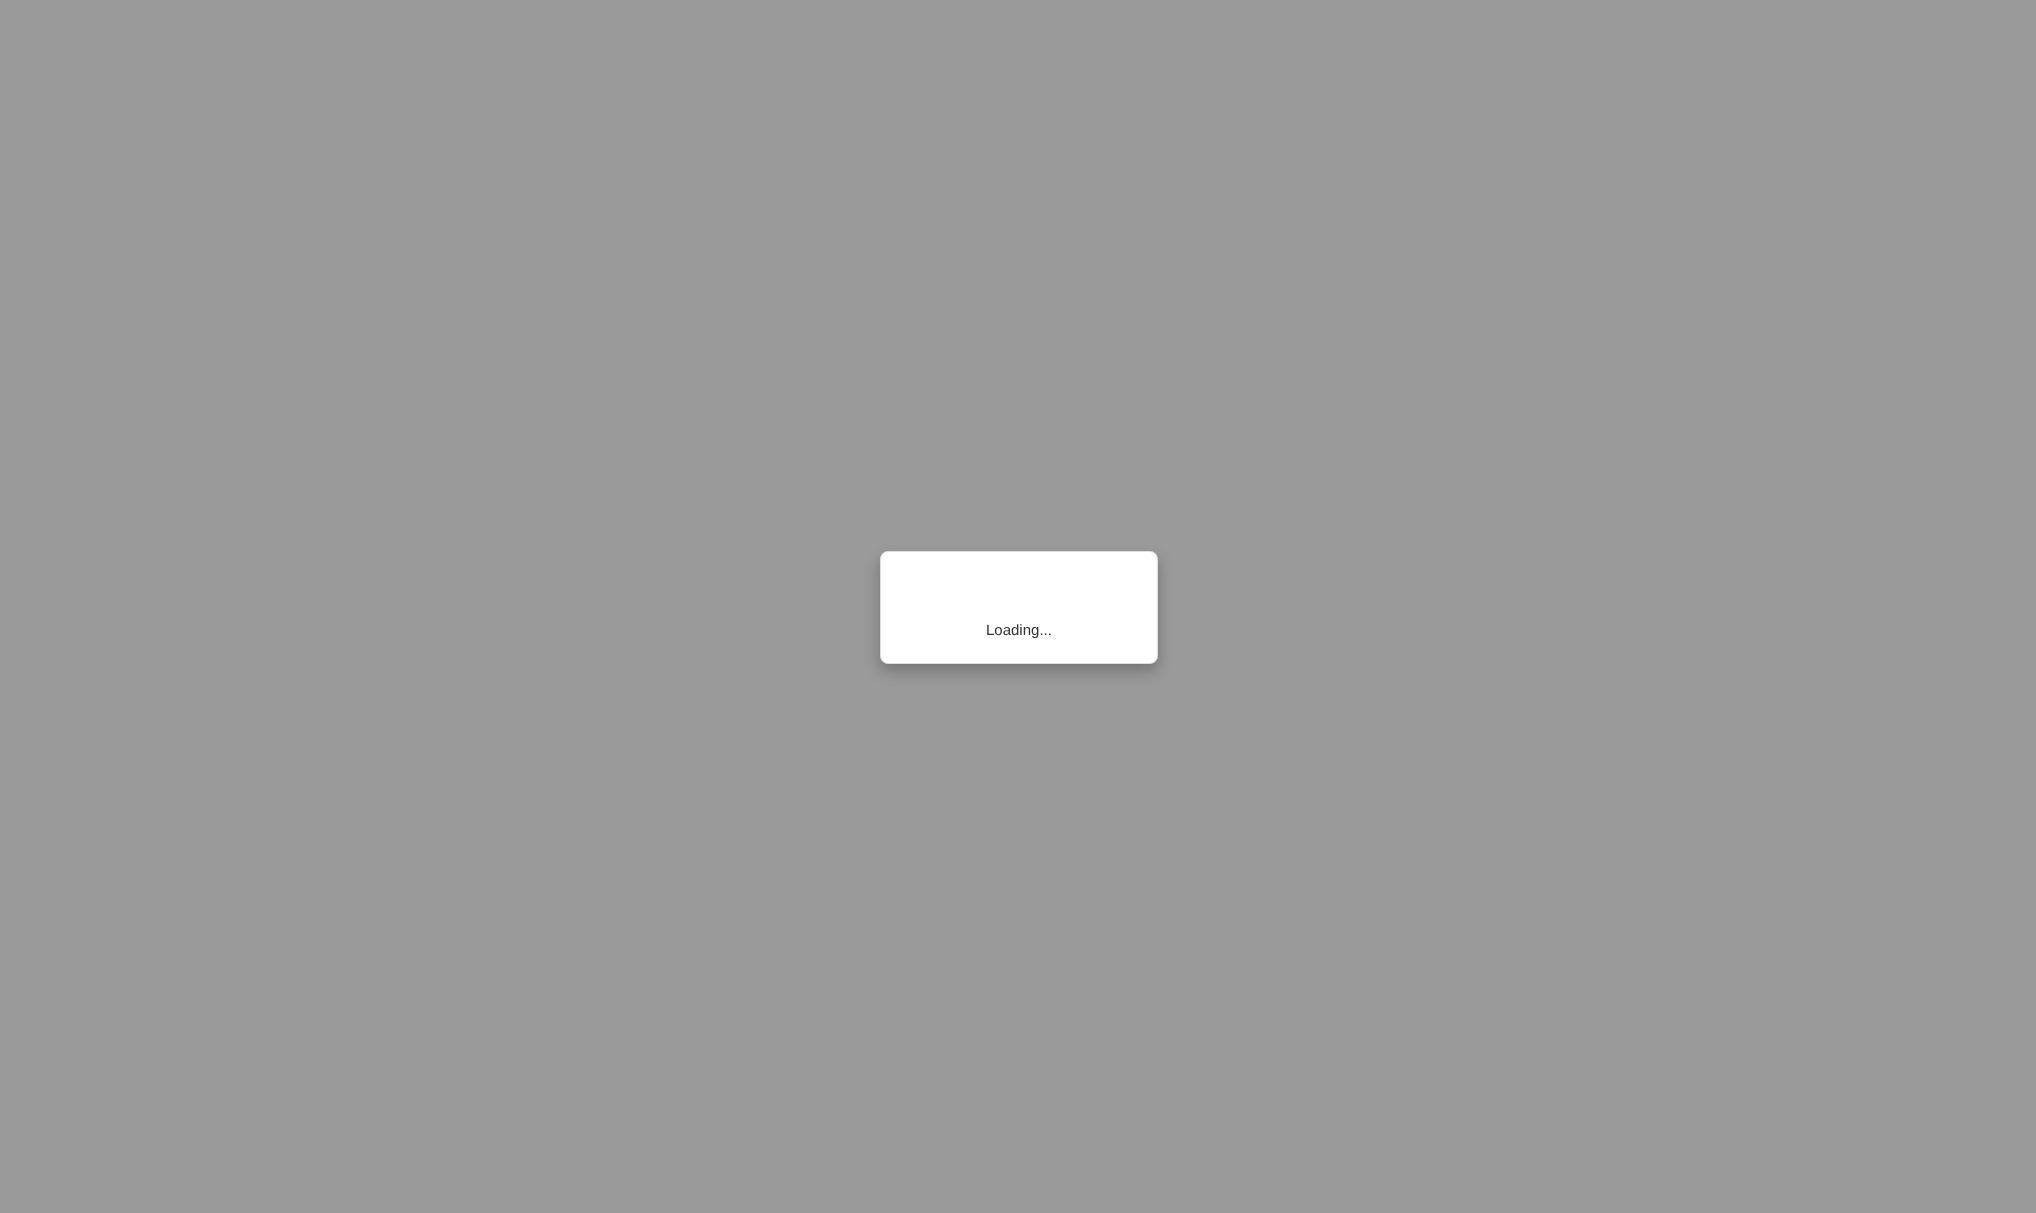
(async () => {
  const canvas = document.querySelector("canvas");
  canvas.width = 2036;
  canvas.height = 1213;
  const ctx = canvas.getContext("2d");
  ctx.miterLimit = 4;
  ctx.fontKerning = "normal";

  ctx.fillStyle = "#9a9a9a";
  ctx.fillRect(0, 0, 2036, 1213);
  ctx.fillStyle = "rgba(0, 0, 0, 0.25)";
  ctx.filter = "blur(7.5px)";
  ctx.beginPath();
  ctx.roundRect(880, 559, 278, 112, 8);
  ctx.fill();
  ctx.filter = "none";
  ctx.fillStyle = "#ffffff";
  ctx.beginPath();
  ctx.roundRect(880.5, 551.5, 277, 112, 7.5);
  ctx.fill();
  ctx.strokeStyle = "#dddddd";
  ctx.stroke();
  ctx.font = "15px Liberation Sans";
  ctx.fillStyle = "#333333";
  ctx.fillText("Loading...", 986, 635);
})();
